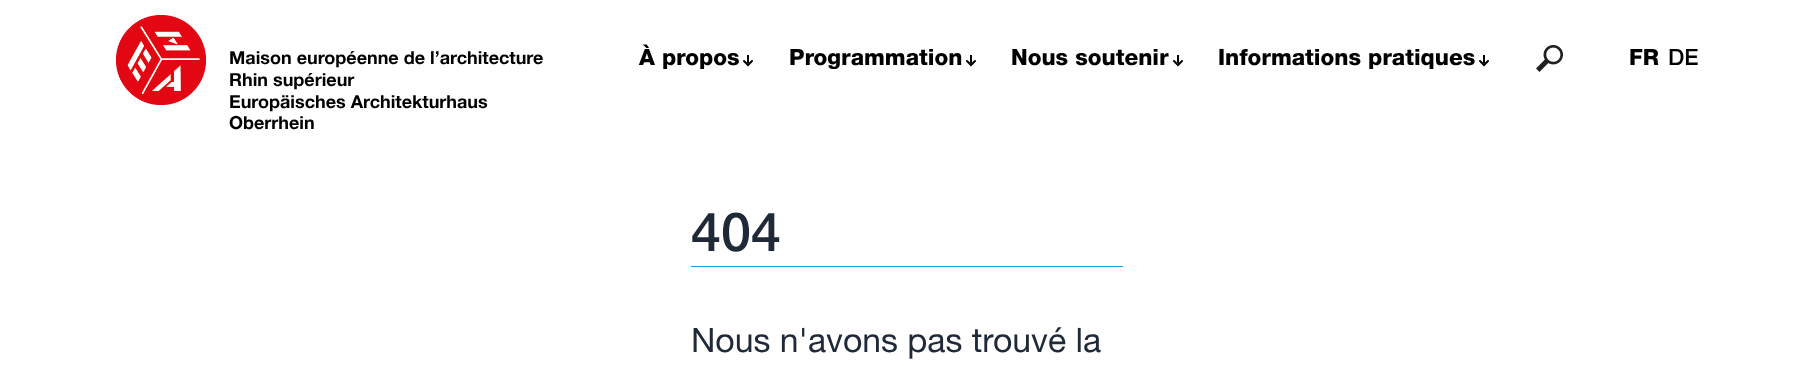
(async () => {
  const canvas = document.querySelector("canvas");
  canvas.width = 1814;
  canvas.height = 386;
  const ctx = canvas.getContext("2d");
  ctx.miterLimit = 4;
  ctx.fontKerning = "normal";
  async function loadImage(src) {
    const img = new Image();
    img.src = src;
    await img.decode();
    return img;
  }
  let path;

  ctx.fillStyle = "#ffffff";
  ctx.fillRect(0, 0, 1814, 386);
  ctx.drawImage(await loadImage("img/1.png"), 116, 15, 90, 90);
  ctx.fillStyle = "#000000";
  ctx.fillRect(747, 55, 2, 8);
  path = new Path2D("M744 61L748 65L752 61");
  ctx.strokeStyle = "#000000";
  ctx.lineWidth = 2;
  ctx.lineCap = "round";
  ctx.stroke(path);
  ctx.fillRect(970, 55, 2, 8);
  path = new Path2D("M967 61L971 65L975 61");
  ctx.stroke(path);
  ctx.fillRect(1177, 55, 2, 8);
  path = new Path2D("M1174 61L1178 65L1182 61");
  ctx.stroke(path);
  ctx.fillRect(1483, 55, 2, 8);
  path = new Path2D("M1480 61L1484 65L1488 61");
  ctx.stroke(path);
  ctx.drawImage(await loadImage("img/2.png"), 1536, 45, 27, 27);
  ctx.fillStyle = "#0ea5e9";
  ctx.fillRect(691, 266, 432, 1);
  ctx.font = "bold 18px Helvetica Neue";
  ctx.fillStyle = "#000000";
  for (const [text, x, y] of [
    ["Maison européenne de l’architecture", 229, 64],
    ["Rhin supérieur", 229, 86],
    ["Europäisches Architekturhaus", 229, 108],
    ["Oberrhein", 229, 129],
  ]) {
    ctx.fillText(text, x, y);
  }
  ctx.font = "bold 22.5px 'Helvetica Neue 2'";
  for (const [text, x, y] of [
    ["À propos", 639, 65],
    ["Programmation", 789, 65],
    ["Nous soutenir", 1011, 65],
    ["Informations pratiques", 1218, 65],
    ["FR", 1629, 65],
  ]) {
    ctx.fillText(text, x, y);
  }
  ctx.font = "500 22.5px Helvetica Neue";
  ctx.fillText("DE", 1668, 65);
  ctx.font = "500 54px Helvetica Neue";
  ctx.fillStyle = "#1f2937";
  ctx.fillText("404", 691, 251);
  ctx.font = "33.75px Helvetica Neue";
  ctx.fillText("Nous n'avons pas trouvé la", 691, 352);
})();
